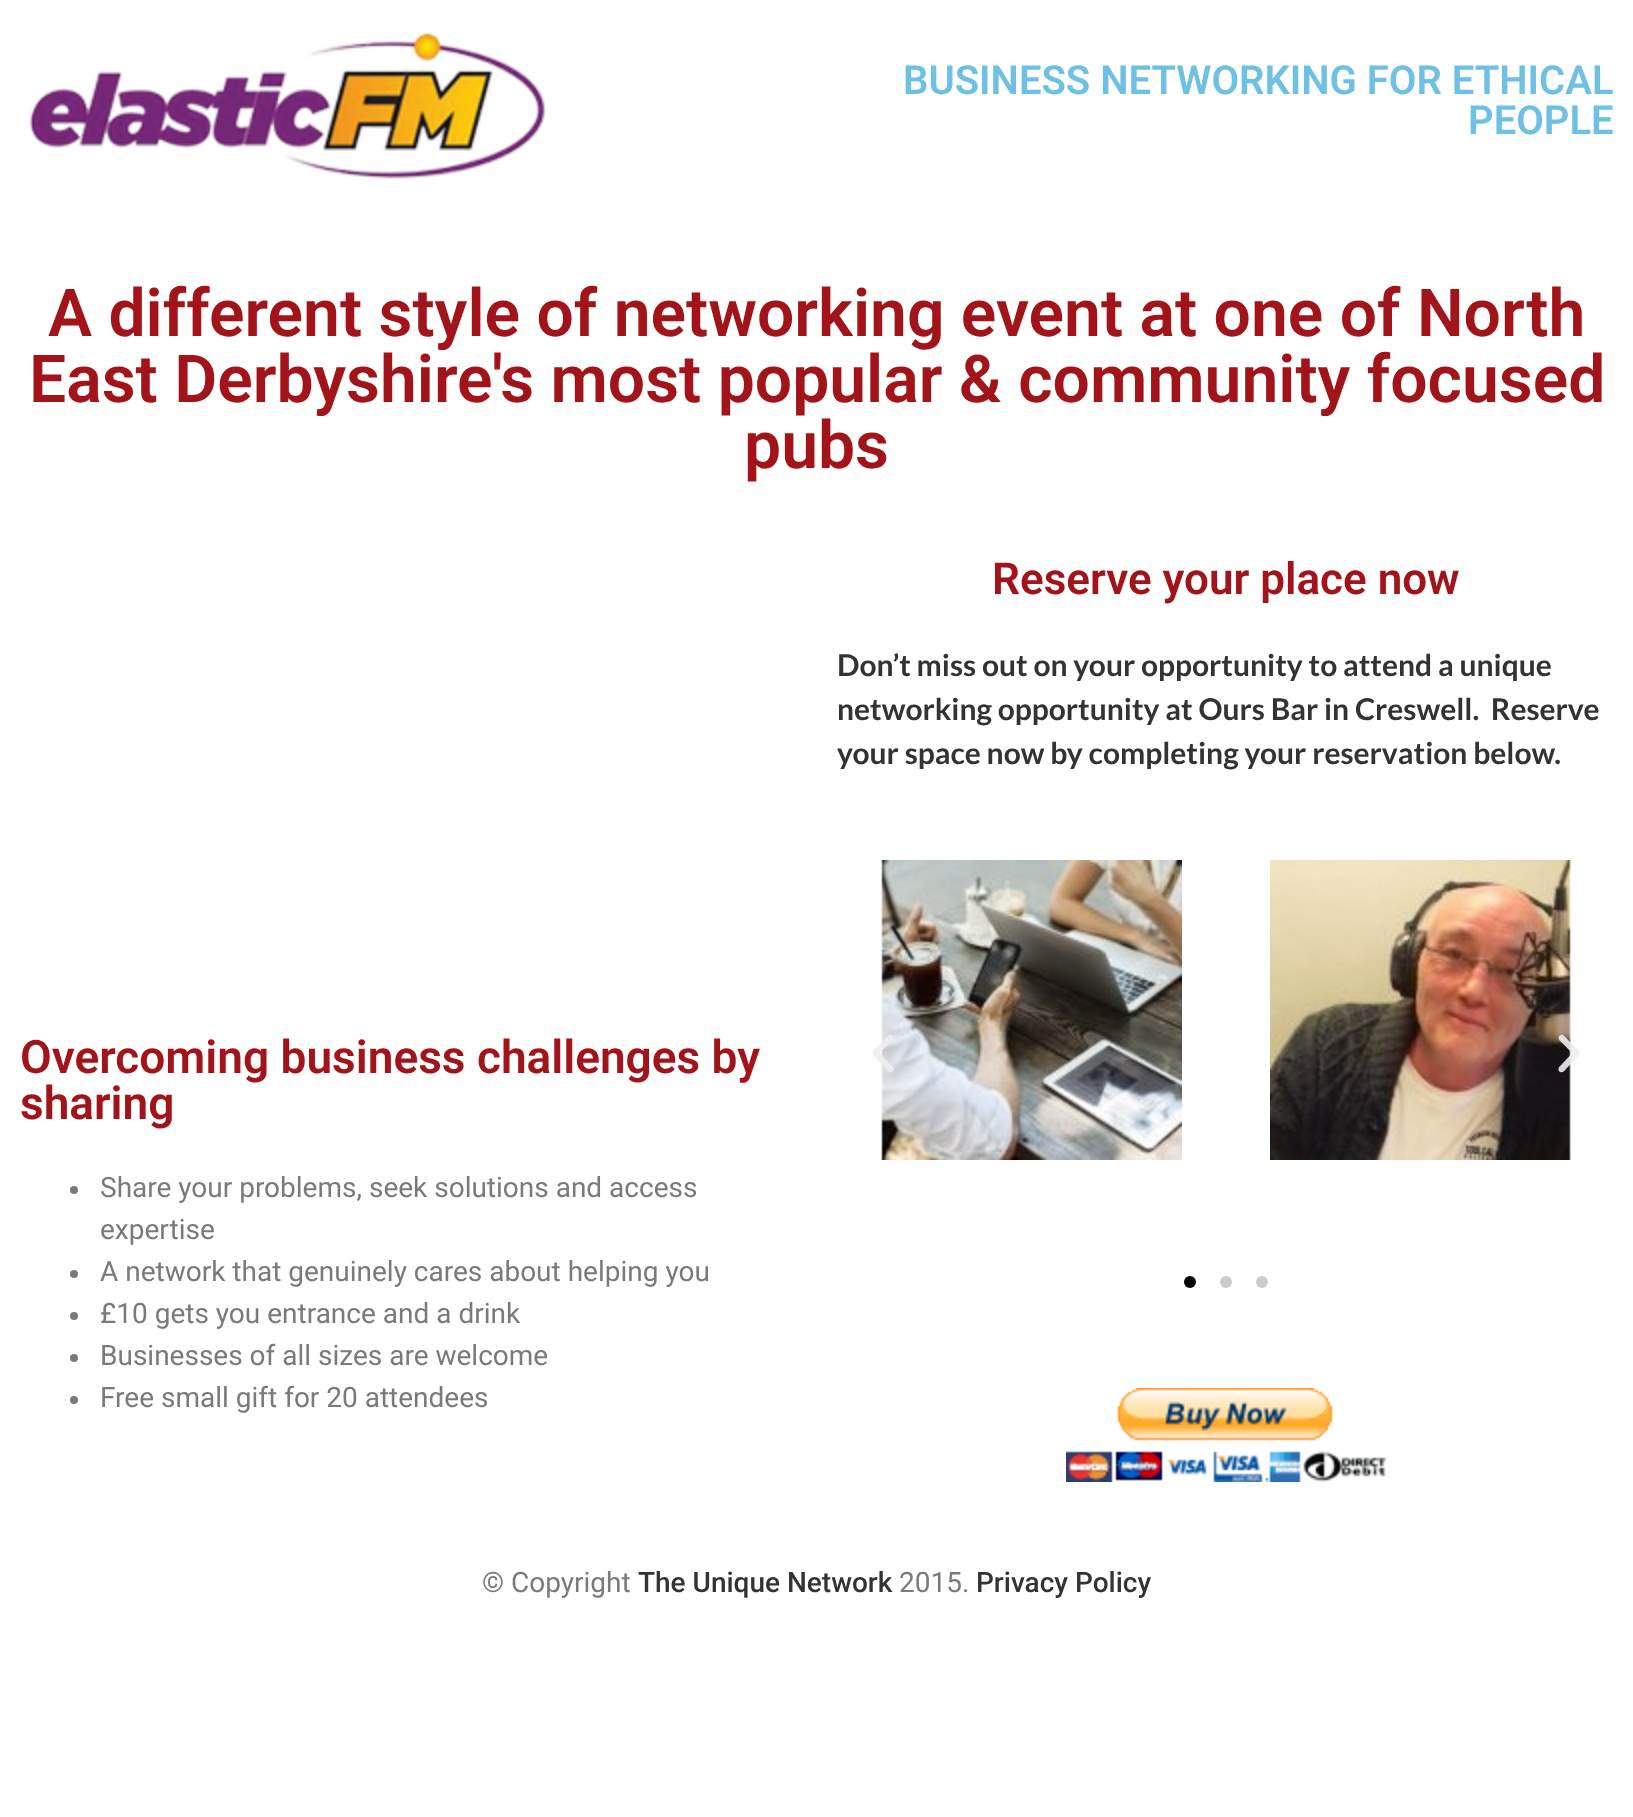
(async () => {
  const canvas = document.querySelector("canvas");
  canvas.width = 1633;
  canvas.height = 1817;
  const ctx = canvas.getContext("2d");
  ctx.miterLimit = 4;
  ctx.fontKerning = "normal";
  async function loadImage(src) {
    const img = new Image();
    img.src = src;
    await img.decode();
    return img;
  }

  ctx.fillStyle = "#ffffff";
  ctx.fillRect(0, 0, 1633, 1817);
  ctx.drawImage(await loadImage("img/1.png"), 29, 31, 518, 148);
  ctx.drawImage(await loadImage("img/2.png"), 881, 860, 301, 300);
  ctx.drawImage(await loadImage("img/3.png"), 1270, 860, 301, 300);
  ctx.drawImage(await loadImage("img/4.png"), 872, 1034, 22, 39);
  ctx.drawImage(await loadImage("img/5.png"), 1558, 1034, 22, 39);
  ctx.fillStyle = "#000000";
  ctx.beginPath();
  ctx.arc(1190, 1282, 6, 0, Math.PI * 2);
  ctx.fill();
  ctx.fillStyle = "#cccccc";
  ctx.beginPath();
  ctx.arc(1226, 1282, 6, 0, Math.PI * 2);
  ctx.fill();
  ctx.beginPath();
  ctx.arc(1262, 1282, 6, 0, Math.PI * 2);
  ctx.fill();
  ctx.drawImage(await loadImage("img/6.png"), 1066, 1388, 320, 94);
  ctx.fillStyle = "#7a7a7a";
  ctx.beginPath();
  ctx.arc(74, 1190, 4, 0, Math.PI * 2);
  ctx.fill();
  ctx.beginPath();
  ctx.arc(74, 1274, 4, 0, Math.PI * 2);
  ctx.fill();
  ctx.beginPath();
  ctx.arc(74, 1316, 4, 0, Math.PI * 2);
  ctx.fill();
  ctx.beginPath();
  ctx.arc(74, 1358, 4, 0, Math.PI * 2);
  ctx.fill();
  ctx.beginPath();
  ctx.arc(74, 1400, 4, 0, Math.PI * 2);
  ctx.fill();
  ctx.font = "600 40px Roboto";
  ctx.fillStyle = "#6ec1e4";
  ctx.fillText("BUSINESS NETWORKING FOR ETHICAL", 903, 94);
  ctx.fillText("PEOPLE", 1468, 134);
  ctx.font = "600 66px Roboto";
  ctx.fillStyle = "#a3141a";
  for (const [text, x, y] of [
    ["A different style of networking event at one of North", 48, 336],
    ["East Derbyshire's most popular & community focused", 29, 402],
    ["pubs", 744, 468],
  ]) {
    ctx.fillText(text, x, y);
  }
  ctx.font = "600 44px Roboto";
  ctx.fillText("Reserve your place now", 992, 594);
  ctx.font = "bold 30px Lato";
  ctx.fillStyle = "#333333";
  for (const [text, x, y] of [
    ["Don’t miss out on your opportunity to attend a unique", 837, 676],
    ["networking opportunity at Ours Bar in Creswell.  Reserve", 837, 720],
    ["your space now by completing your reservation below.", 837, 764],
  ]) {
    ctx.fillText(text, x, y);
  }
  ctx.font = "600 46px Roboto";
  ctx.fillStyle = "#a3141a";
  ctx.fillText("Overcoming business challenges by", 20, 1073);
  ctx.fillText("sharing", 20, 1119);
  ctx.font = "28px Roboto";
  ctx.fillStyle = "#7a7a7a";
  for (const [text, x, y] of [
    ["Share your problems, seek solutions and access", 100, 1197],
    ["expertise", 100, 1239],
    ["A network that genuinely cares about helping you", 100, 1281],
    ["£10 gets you entrance and a drink", 100, 1323],
    ["Businesses of all sizes are welcome", 100, 1365],
    ["Free small gift for 20 attendees", 100, 1407],
    ["© Copyright", 482, 1592],
  ]) {
    ctx.fillText(text, x, y);
  }
  ctx.font = "500 28px Roboto";
  ctx.fillStyle = "#333333";
  ctx.fillText("The Unique Network", 638, 1592);
  ctx.font = "28px Roboto";
  ctx.fillStyle = "#7a7a7a";
  ctx.fillText("2015.", 899, 1592);
  ctx.font = "500 28px Roboto";
  ctx.fillStyle = "#333333";
  ctx.fillText("Privacy Policy", 976, 1592);
})();
